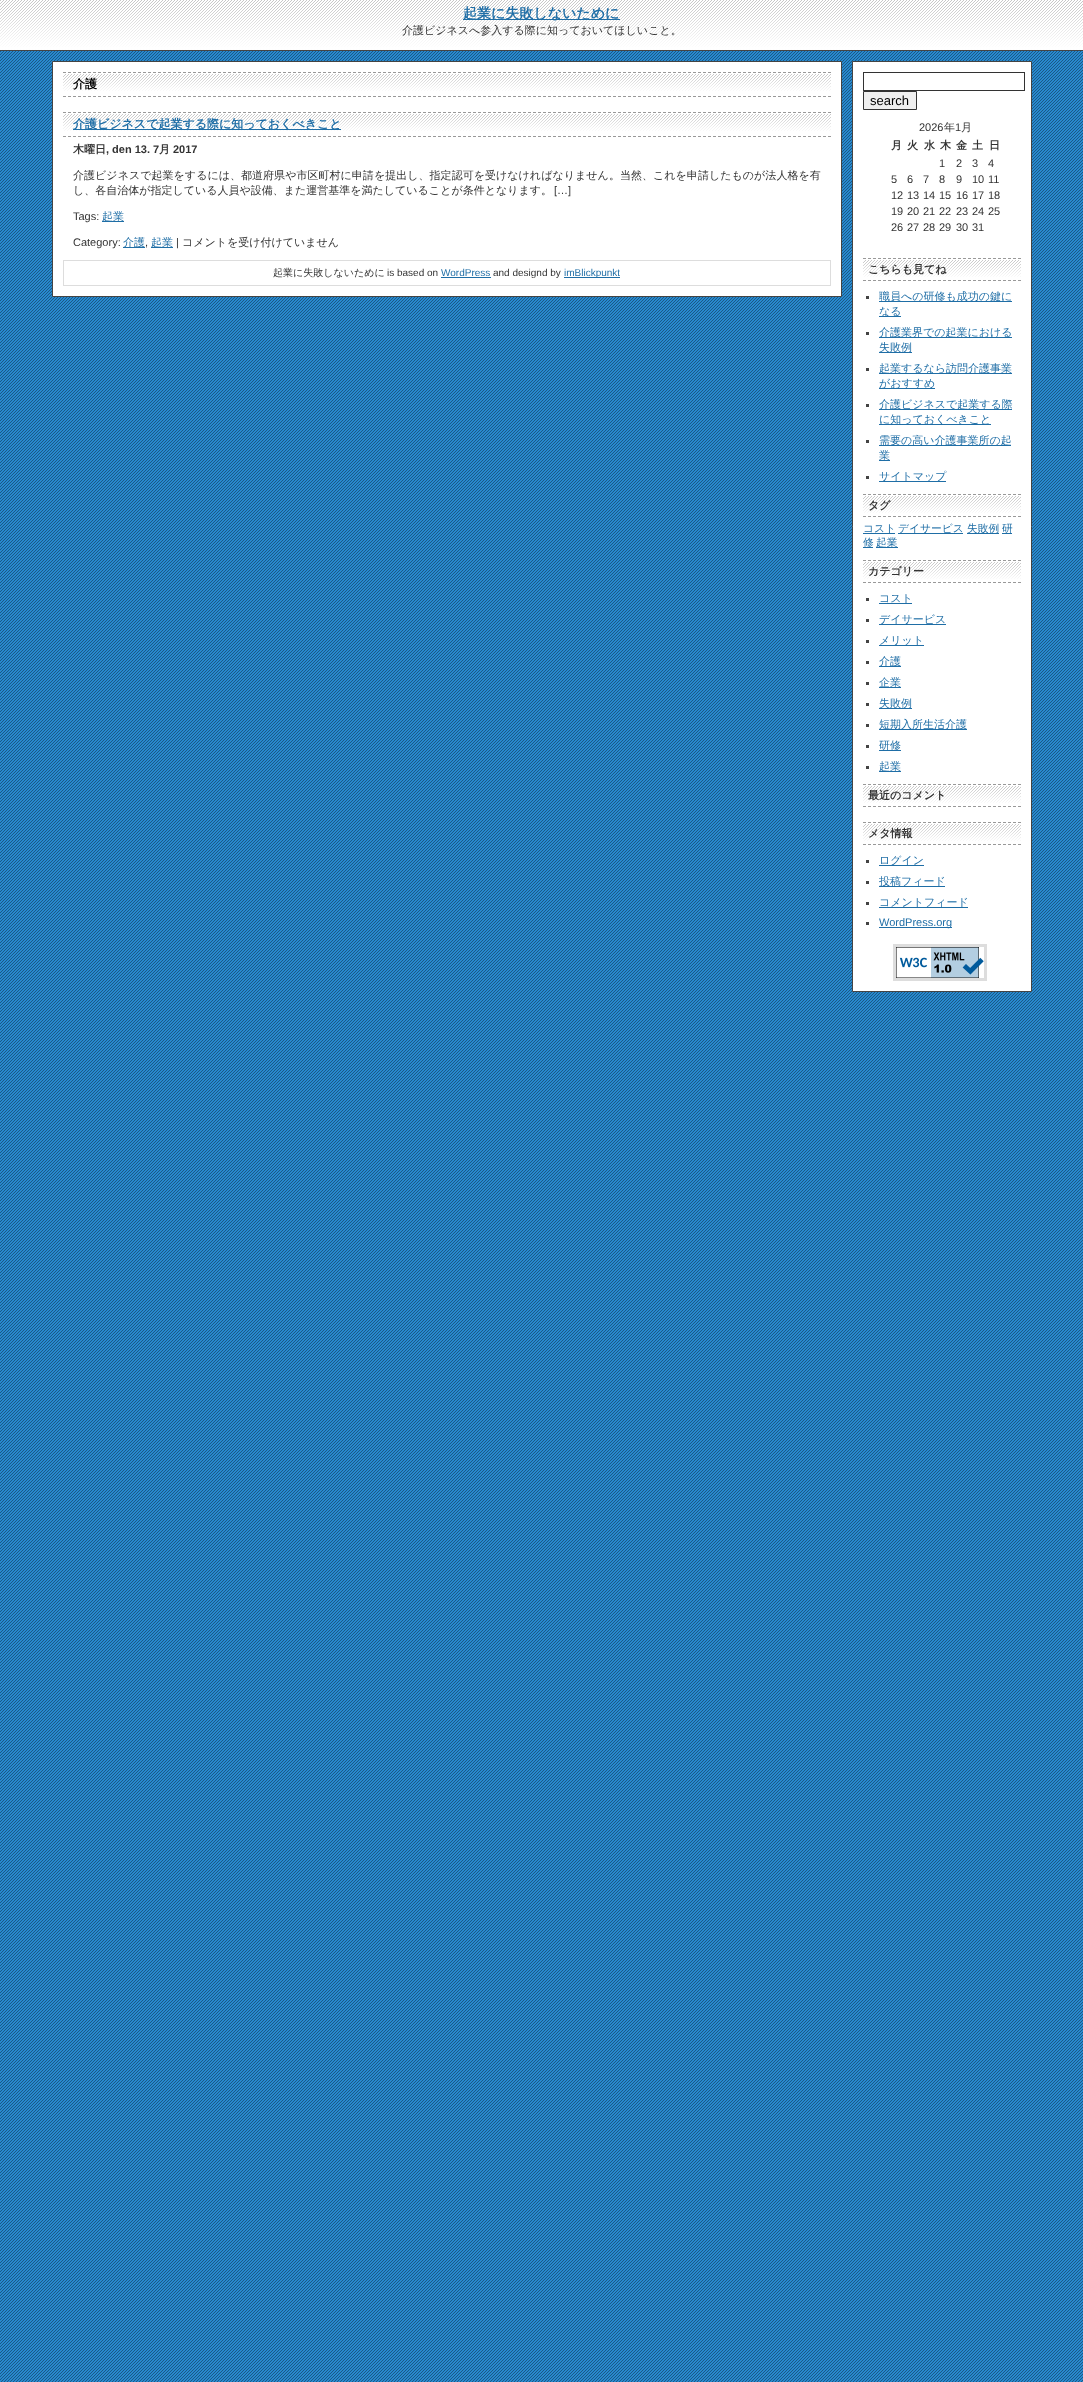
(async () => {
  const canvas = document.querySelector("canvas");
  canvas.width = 1083;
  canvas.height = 2382;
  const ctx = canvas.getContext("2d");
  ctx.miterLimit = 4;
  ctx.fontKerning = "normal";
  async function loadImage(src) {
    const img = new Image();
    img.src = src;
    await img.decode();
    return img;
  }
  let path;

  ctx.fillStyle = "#ffffff";
  ctx.fillRect(0, 0, 1083, 2382);
  ctx.drawImage(await loadImage("img/1.png"), 0, 51, 1083, 2331);
  ctx.drawImage(await loadImage("img/2.png"), 0, 0, 1083, 50);
  ctx.fillStyle = "#444444";
  ctx.fillRect(0, 50, 1083, 1);
  ctx.fillStyle = "#1f6ea6";
  ctx.fillRect(463, 19, 157, 1);
  ctx.fillStyle = "#ffffff";
  ctx.beginPath();
  ctx.rect(52.5, 61.5, 789, 235);
  ctx.fill();
  ctx.strokeStyle = "#444444";
  ctx.stroke();
  ctx.drawImage(await loadImage("img/3.png"), 63, 74, 768, 17);
  path = new Path2D("M63 72.5H831");
  ctx.strokeStyle = "#999999";
  ctx.setLineDash([3, 2]);
  ctx.stroke(path);
  path = new Path2D("M63 96.5H831");
  ctx.stroke(path);
  ctx.drawImage(await loadImage("img/3.png"), 63, 114, 768, 17);
  path = new Path2D("M63 112.5H831");
  ctx.stroke(path);
  path = new Path2D("M63 136.5H831");
  ctx.stroke(path);
  for (const [x, y, w, h, color] of [
    [73, 129, 268, 1, "#1f6ea6"],
    [102, 221, 22, 1, "#1f6ea6"],
    [123, 247, 22, 1, "#1f6ea6"],
    [151, 247, 22, 1, "#1f6ea6"],
  ]) {
    ctx.fillStyle = color;
    ctx.fillRect(x, y, w, h);
  }
  ctx.strokeStyle = "#dddddd";
  ctx.setLineDash([]);
  ctx.strokeRect(63.5, 260.5, 767, 25);
  ctx.fillRect(441, 277, 50, 1);
  ctx.fillRect(564, 277, 56, 1);
  ctx.fillStyle = "#ffffff";
  ctx.beginPath();
  ctx.rect(852.5, 61.5, 179, 930);
  ctx.fill();
  ctx.strokeStyle = "#444444";
  ctx.stroke();
  ctx.strokeStyle = "#333333";
  ctx.strokeRect(863.5, 72.5, 161, 18);
  ctx.fillStyle = "#efefef";
  ctx.beginPath();
  ctx.rect(863.5, 91.5, 53, 18);
  ctx.fill();
  ctx.stroke();
  ctx.drawImage(await loadImage("img/4.png"), 863, 260, 158, 17);
  path = new Path2D("M863 258.5H1021");
  ctx.strokeStyle = "#999999";
  ctx.setLineDash([3, 2]);
  ctx.stroke(path);
  path = new Path2D("M863 280.5H1021");
  ctx.stroke(path);
  for (const [x, y, w, h, color] of [
    [866, 296, 3, 3, "#444444"],
    [879, 301, 133, 1, "#1f6ea6"],
    [879, 316, 22, 1, "#1f6ea6"],
    [866, 332, 3, 3, "#444444"],
    [879, 337, 133, 1, "#1f6ea6"],
    [879, 352, 33, 1, "#1f6ea6"],
    [866, 368, 3, 3, "#444444"],
    [879, 373, 133, 1, "#1f6ea6"],
    [879, 388, 56, 1, "#1f6ea6"],
    [866, 404, 3, 3, "#444444"],
    [879, 409, 133, 1, "#1f6ea6"],
    [879, 424, 112, 1, "#1f6ea6"],
    [866, 440, 3, 3, "#444444"],
    [879, 445, 132, 1, "#1f6ea6"],
    [879, 460, 11, 1, "#1f6ea6"],
    [866, 476, 3, 3, "#444444"],
    [879, 481, 67, 1, "#1f6ea6"],
  ]) {
    ctx.fillStyle = color;
    ctx.fillRect(x, y, w, h);
  }
  ctx.drawImage(await loadImage("img/4.png"), 863, 496, 158, 17);
  path = new Path2D("M863 494.5H1021");
  ctx.stroke(path);
  path = new Path2D("M863 516.5H1021");
  ctx.stroke(path);
  for (const [x, y, w, h, color] of [
    [863, 533, 32, 1, "#1f6ea6"],
    [898, 533, 65, 1, "#1f6ea6"],
    [967, 533, 32, 1, "#1f6ea6"],
    [1002, 533, 10, 1, "#1f6ea6"],
    [863, 547, 10, 1, "#1f6ea6"],
    [876, 547, 22, 1, "#1f6ea6"],
  ]) {
    ctx.fillStyle = color;
    ctx.fillRect(x, y, w, h);
  }
  ctx.drawImage(await loadImage("img/4.png"), 863, 562, 158, 17);
  path = new Path2D("M863 560.5H1021");
  ctx.stroke(path);
  path = new Path2D("M863 582.5H1021");
  ctx.stroke(path);
  for (const [x, y, w, h, color] of [
    [866, 598, 3, 3, "#444444"],
    [879, 603, 33, 1, "#1f6ea6"],
    [866, 619, 3, 3, "#444444"],
    [879, 624, 67, 1, "#1f6ea6"],
    [866, 640, 3, 3, "#444444"],
    [879, 645, 45, 1, "#1f6ea6"],
    [866, 661, 3, 3, "#444444"],
    [879, 666, 22, 1, "#1f6ea6"],
    [866, 682, 3, 3, "#444444"],
    [879, 687, 22, 1, "#1f6ea6"],
    [866, 703, 3, 3, "#444444"],
    [879, 708, 33, 1, "#1f6ea6"],
    [866, 724, 3, 3, "#444444"],
    [879, 729, 88, 1, "#1f6ea6"],
    [866, 745, 3, 3, "#444444"],
    [879, 750, 22, 1, "#1f6ea6"],
    [866, 766, 3, 3, "#444444"],
    [879, 771, 22, 1, "#1f6ea6"],
  ]) {
    ctx.fillStyle = color;
    ctx.fillRect(x, y, w, h);
  }
  ctx.drawImage(await loadImage("img/4.png"), 863, 786, 158, 17);
  path = new Path2D("M863 784.5H1021");
  ctx.stroke(path);
  path = new Path2D("M863 806.5H1021");
  ctx.stroke(path);
  ctx.drawImage(await loadImage("img/4.png"), 863, 824, 158, 17);
  path = new Path2D("M863 822.5H1021");
  ctx.stroke(path);
  path = new Path2D("M863 844.5H1021");
  ctx.stroke(path);
  for (const [x, y, w, h, color] of [
    [866, 860, 3, 3, "#444444"],
    [879, 865, 45, 1, "#1f6ea6"],
    [866, 881, 3, 3, "#444444"],
    [879, 886, 66, 1, "#1f6ea6"],
    [866, 902, 3, 3, "#444444"],
    [879, 907, 89, 1, "#1f6ea6"],
    [866, 922, 3, 3, "#444444"],
    [879, 927, 73, 1, "#1f6ea6"],
  ]) {
    ctx.fillStyle = color;
    ctx.fillRect(x, y, w, h);
  }
  ctx.strokeStyle = "#dddddd";
  ctx.lineWidth = 3;
  ctx.setLineDash([]);
  ctx.strokeRect(894.5, 945.5, 91, 34);
  ctx.drawImage(await loadImage("img/5.png"), 896, 947, 88, 31);
  ctx.font = "bold 14px WenQuanYi Zen Hei";
  ctx.fillText("起業に失敗しないために", 463, 18);
  ctx.font = "500 11px WenQuanYi Zen Hei";
  ctx.fillStyle = "#333333";
  ctx.fillText("介護ビジネスへ参入する際に知っておいてほしいこと。", 402, 34);
  ctx.font = "bold 12px WenQuanYi Zen Hei";
  ctx.fillStyle = "#000000";
  ctx.fillText("介護", 73, 88);
  ctx.fillStyle = "#1f6ea6";
  ctx.fillText("介護ビジネスで起業する際に知っておくべきこと", 73, 128);
  ctx.font = "bold 11px WenQuanYi Zen Hei";
  ctx.fillStyle = "#333333";
  ctx.fillText("木曜日", 73, 153);
  ctx.font = "bold 11px Liberation Sans";
  ctx.fillText(", den 13. 7", 106, 153);
  ctx.font = "bold 11px WenQuanYi Zen Hei";
  ctx.fillText("月", 159, 153);
  ctx.font = "bold 11px Liberation Sans";
  ctx.fillText("2017", 173, 153);
  ctx.letterSpacing = "0.03px";
  ctx.font = "500 11px WenQuanYi Zen Hei";
  ctx.fillText("介護ビジネスで起業をするには、都道府県や市区町村に申請を提出し、指定認可を受けなければなりません。当然、これを申請したものが法人格を有", 73, 179);
  ctx.letterSpacing = "0px";
  ctx.fillText("し、各自治体が指定している人員や設備、また運営基準を満たしていることが条件となります。", 73, 194);
  ctx.font = "11px Liberation Sans";
  ctx.fillText("[…]", 554, 194);
  ctx.fillText("Tags:", 73, 220);
  ctx.font = "500 11px WenQuanYi Zen Hei";
  ctx.fillStyle = "#1f6ea6";
  ctx.fillText("起業", 102, 220);
  ctx.font = "11px Liberation Sans";
  ctx.fillStyle = "#333333";
  ctx.fillText("Category:", 73, 246);
  ctx.font = "500 11px WenQuanYi Zen Hei";
  ctx.fillStyle = "#1f6ea6";
  ctx.fillText("介護", 123, 246);
  ctx.font = "11px Liberation Sans";
  ctx.fillStyle = "#333333";
  ctx.fillText(",", 145, 246);
  ctx.font = "500 11px WenQuanYi Zen Hei";
  ctx.fillStyle = "#1f6ea6";
  ctx.fillText("起業", 151, 246);
  ctx.font = "11px Liberation Sans";
  ctx.fillStyle = "#333333";
  ctx.fillText("|", 176, 246);
  ctx.font = "500 11px WenQuanYi Zen Hei";
  ctx.fillText("コメントを受け付けていません", 182, 246);
  ctx.font = "500 10px WenQuanYi Zen Hei";
  ctx.fillText("起業に失敗しないために", 273, 276);
  ctx.font = "10px Liberation Sans";
  ctx.fillText("is based on", 387, 276);
  ctx.fillStyle = "#1f6ea6";
  ctx.fillText("WordPress", 441, 276);
  ctx.fillStyle = "#333333";
  ctx.fillText("and designd by", 493, 276);
  ctx.fillStyle = "#1f6ea6";
  ctx.fillText("imBlickpunkt", 564, 276);
  ctx.font = "13px Liberation Sans";
  ctx.fillStyle = "#000000";
  ctx.fillText("search", 870, 105);
  ctx.font = "11px Liberation Sans";
  ctx.fillStyle = "#333333";
  ctx.fillText("2026", 919, 131);
  ctx.font = "500 11px WenQuanYi Zen Hei";
  ctx.fillText("年", 944, 131);
  ctx.font = "11px Liberation Sans";
  ctx.fillText("1", 955, 131);
  ctx.font = "500 11px WenQuanYi Zen Hei";
  ctx.fillText("月", 961, 131);
  ctx.font = "bold 11px WenQuanYi Zen Hei";
  for (const [text, x, y] of [
    ["月", 891, 149],
    ["火", 907, 149],
    ["水", 924, 149],
    ["木", 940, 149],
    ["金", 956, 149],
    ["土", 972, 149],
    ["日", 989, 149],
  ]) {
    ctx.fillText(text, x, y);
  }
  ctx.font = "11px Liberation Sans";
  for (const [text, x, y] of [
    ["1", 939, 167],
    ["2", 956, 167],
    ["3", 972, 167],
    ["4", 988, 167],
    ["5", 891, 183],
    ["6", 907, 183],
    ["7", 923, 183],
    ["8", 939, 183],
    ["9", 956, 183],
    ["10", 972, 183],
    ["11", 988, 183],
    ["12", 891, 199],
    ["13", 907, 199],
    ["14", 923, 199],
    ["15", 939, 199],
    ["16", 956, 199],
    ["17", 972, 199],
    ["18", 988, 199],
    ["19", 891, 215],
    ["20", 907, 215],
    ["21", 923, 215],
    ["22", 939, 215],
    ["23", 956, 215],
    ["24", 972, 215],
    ["25", 988, 215],
    ["26", 891, 231],
    ["27", 907, 231],
    ["28", 923, 231],
    ["29", 939, 231],
    ["30", 956, 231],
    ["31", 972, 231],
  ]) {
    ctx.fillText(text, x, y);
  }
  ctx.font = "bold 11px WenQuanYi Zen Hei";
  ctx.fillText("こちらも見てね", 868, 273);
  ctx.font = "500 11px WenQuanYi Zen Hei";
  ctx.fillStyle = "#1f6ea6";
  for (const [text, x, y] of [
    ["職員への研修も成功の鍵に", 879, 300],
    ["なる", 879, 315],
    ["介護業界での起業における", 879, 336],
    ["失敗例", 879, 351],
    ["起業するなら訪問介護事業", 879, 372],
    ["がおすすめ", 879, 387],
    ["介護ビジネスで起業する際", 879, 408],
    ["に知っておくべきこと", 879, 423],
    ["需要の高い介護事業所の起", 879, 444],
    ["業", 879, 459],
    ["サイトマップ", 879, 480],
  ]) {
    ctx.fillText(text, x, y);
  }
  ctx.font = "bold 11px WenQuanYi Zen Hei";
  ctx.fillStyle = "#333333";
  ctx.fillText("タグ", 868, 509);
  ctx.font = "500 10.75px WenQuanYi Zen Hei";
  ctx.fillStyle = "#1f6ea6";
  for (const [text, x, y] of [
    ["コスト", 863, 532],
    ["デイサービス", 898, 532],
    ["失敗例", 967, 532],
    ["研", 1002, 532],
    ["修", 863, 546],
    ["起業", 876, 546],
  ]) {
    ctx.fillText(text, x, y);
  }
  ctx.font = "bold 11px WenQuanYi Zen Hei";
  ctx.fillStyle = "#333333";
  ctx.fillText("カテゴリー", 868, 575);
  ctx.font = "500 11px WenQuanYi Zen Hei";
  ctx.fillStyle = "#1f6ea6";
  for (const [text, x, y] of [
    ["コスト", 879, 602],
    ["デイサービス", 879, 623],
    ["メリット", 879, 644],
    ["介護", 879, 665],
    ["企業", 879, 686],
    ["失敗例", 879, 707],
    ["短期入所生活介護", 879, 728],
    ["研修", 879, 749],
    ["起業", 879, 770],
  ]) {
    ctx.fillText(text, x, y);
  }
  ctx.font = "bold 11px WenQuanYi Zen Hei";
  ctx.fillStyle = "#333333";
  ctx.fillText("最近のコメント", 868, 799);
  ctx.fillText("メタ情報", 868, 837);
  ctx.font = "500 11px WenQuanYi Zen Hei";
  ctx.fillStyle = "#1f6ea6";
  for (const [text, x, y] of [
    ["ログイン", 879, 864],
    ["投稿フィード", 879, 885],
    ["コメントフィード", 879, 906],
  ]) {
    ctx.fillText(text, x, y);
  }
  ctx.font = "11px Liberation Sans";
  ctx.fillText("WordPress.org", 879, 926);
})();
